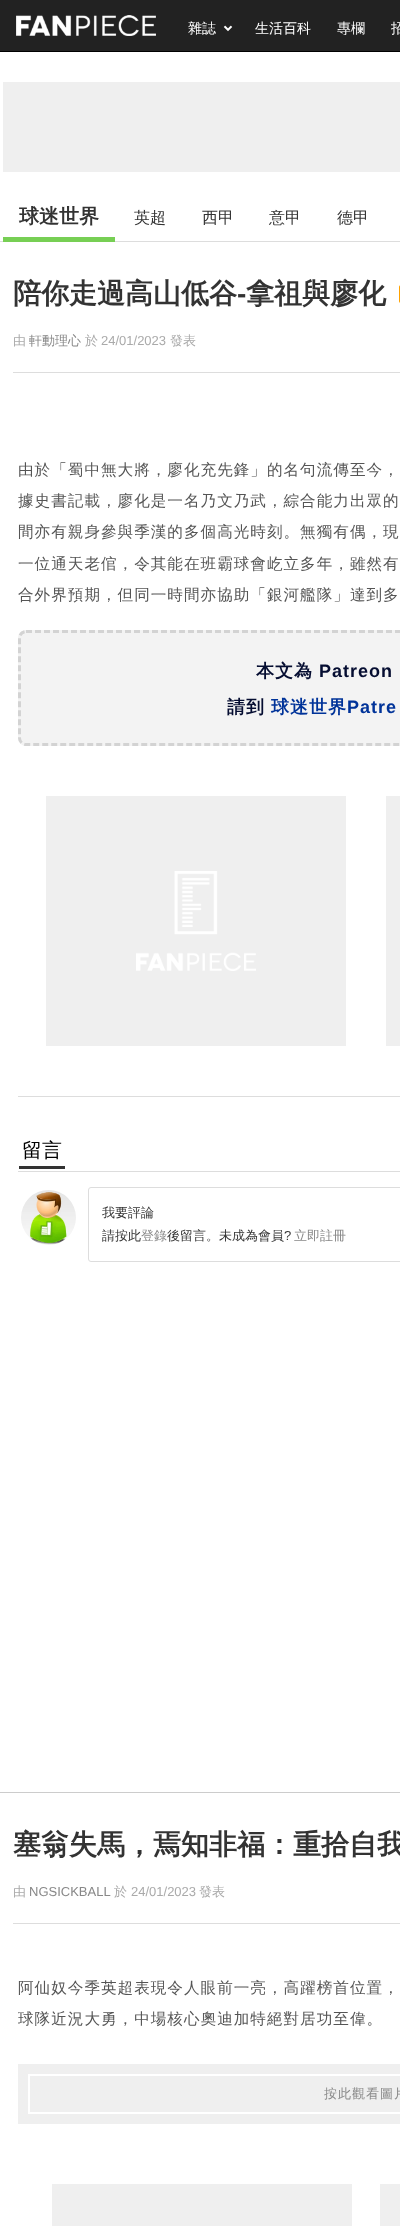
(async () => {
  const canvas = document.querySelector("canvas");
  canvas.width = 400;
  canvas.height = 2226;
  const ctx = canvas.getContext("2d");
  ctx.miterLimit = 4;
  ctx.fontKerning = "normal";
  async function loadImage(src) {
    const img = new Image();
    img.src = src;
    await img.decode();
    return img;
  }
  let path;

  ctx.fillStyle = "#ffffff";
  ctx.fillRect(0, 0, 400, 2226);
  ctx.fillStyle = "#222222";
  ctx.fillRect(0, 0, 400, 51);
  ctx.fillStyle = "#000000";
  ctx.fillRect(0, 51, 400, 1);
  ctx.drawImage(await loadImage("img/1.png"), 16, 15, 140, 21);
  ctx.drawImage(await loadImage("img/2.png"), 223, 25, 10, 7);
  for (const [x, y, w, h, color] of [
    [3, 82, 397, 90, "#efefef"],
    [0, 241, 400, 1, "#dddddd"],
    [3, 237, 112, 5, "#77cf54"],
    [13, 372, 387, 1, "#dddddd"],
  ]) {
    ctx.fillStyle = color;
    ctx.fillRect(x, y, w, h);
  }
  ctx.fillStyle = "#ffa200";
  ctx.beginPath();
  ctx.roundRect(399, 285, 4, 18, 3);
  ctx.fill();
  ctx.fillStyle = "#dddddd";
  ctx.fillRect(18, 1096, 382, 1);
  ctx.fillStyle = "#f3f3f3";
  ctx.beginPath();
  ctx.roundRect(18, 630, 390, 116, 8);
  ctx.fill();
  path = new Path2D("M26 631.5H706C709.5 631.5 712.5 634.5 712.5 638V738C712.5 741.5 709.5 744.5 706 744.5H26C22.5 744.5 19.5 741.5 19.5 738V638C19.5 634.5 22.5 631.5 26 631.5Z");
  ctx.strokeStyle = "#d3d3d3";
  ctx.lineWidth = 3;
  ctx.setLineDash([6, 3]);
  ctx.stroke(path);
  ctx.fillStyle = "#efefef";
  ctx.fillRect(46, 796, 300, 250);
  ctx.drawImage(await loadImage("img/3.png"), 136, 871, 120, 100);
  for (const [x, y, w, h, color] of [
    [386, 796, 14, 250, "#efefef"],
    [18, 1171, 382, 1, "#dddddd"],
    [19, 1166, 46, 3, "#333333"],
  ]) {
    ctx.fillStyle = color;
    ctx.fillRect(x, y, w, h);
  }
  ctx.drawImage(await loadImage("img/4.png"), 21, 1190, 55, 55);
  ctx.beginPath();
  ctx.roundRect(88.5, 1187.5, 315, 74, 2.5);
  ctx.strokeStyle = "#dddddd";
  ctx.lineWidth = 1;
  ctx.setLineDash([]);
  ctx.stroke();
  for (const [x, y, w, h, color] of [
    [0, 1792, 400, 1, "#cccccc"],
    [13, 1923, 387, 1, "#dddddd"],
    [18, 2064, 382, 60, "#efefef"],
  ]) {
    ctx.fillStyle = color;
    ctx.fillRect(x, y, w, h);
  }
  ctx.strokeStyle = "#ffffff";
  ctx.lineWidth = 2;
  ctx.strokeRect(29, 2075, 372, 38);
  ctx.fillRect(52, 2184, 300, 42);
  ctx.fillRect(380, 2184, 20, 42);
  ctx.font = "500 14px WenQuanYi Zen Hei";
  ctx.fillStyle = "#ffffff";
  for (const [text, x, y] of [
    ["雜誌", 188, 33],
    ["生活百科", 255, 33],
    ["專欄", 337, 33],
    ["招", 391, 33],
  ]) {
    ctx.fillText(text, x, y);
  }
  ctx.font = "bold 20px WenQuanYi Zen Hei";
  ctx.fillStyle = "#333333";
  ctx.fillText("球迷世界", 19, 223);
  ctx.font = "500 16px WenQuanYi Zen Hei";
  for (const [text, x, y] of [
    ["英超", 134, 223],
    ["西甲", 202, 223],
    ["意甲", 269, 223],
    ["德甲", 337, 223],
  ]) {
    ctx.fillText(text, x, y);
  }
  ctx.font = "bold 28px WenQuanYi Zen Hei";
  ctx.fillText("陪你走過高山低谷", 13, 303);
  ctx.font = "bold 28px Liberation Sans";
  ctx.fillText("-", 237, 303);
  ctx.font = "bold 28px WenQuanYi Zen Hei";
  ctx.fillText("拿祖與廖化", 246, 303);
  ctx.font = "500 13px WenQuanYi Zen Hei";
  ctx.fillStyle = "#aaaaaa";
  ctx.fillText("由", 13, 345);
  ctx.fillStyle = "#888888";
  ctx.fillText("軒動理心", 29, 345);
  ctx.fillStyle = "#aaaaaa";
  ctx.fillText("於", 85, 345);
  ctx.font = "13px Liberation Sans";
  ctx.fillText("24/01/2023", 101, 345);
  ctx.font = "500 13px WenQuanYi Zen Hei";
  ctx.fillText("發表", 170, 345);
  ctx.letterSpacing = "1px";
  ctx.font = "500 15.6px WenQuanYi Zen Hei";
  ctx.fillStyle = "#555555";
  for (const [text, x, y] of [
    ["由於「蜀中無大將，廖化充先鋒」的名句流傳至今，", 18, 475],
    ["據史書記載，廖化是一名乃文乃武，綜合能力出眾的", 18, 506],
    ["間亦有親身參與季漢的多個高光時刻。無獨有偶，現", 18, 537],
    ["一位通天老倌，令其能在班霸球會屹立多年，雖然有", 18, 569],
    ["合外界預期，但同一時間亦協助「銀河艦隊」達到多", 18, 600],
  ]) {
    ctx.fillText(text, x, y);
  }
  ctx.font = "bold 18px WenQuanYi Zen Hei";
  ctx.fillStyle = "#050d31";
  ctx.fillText("本文為", 256, 677);
  ctx.font = "bold 18px Liberation Sans";
  ctx.fillText("Patreon", 319, 677);
  ctx.font = "bold 18px WenQuanYi Zen Hei";
  ctx.fillText("請到", 227, 713);
  ctx.fillStyle = "#003399";
  ctx.fillText("球迷世界", 271, 713);
  ctx.font = "bold 18px Liberation Sans";
  ctx.fillText("Patre", 347, 713);
  ctx.letterSpacing = "0px";
  ctx.font = "500 20px WenQuanYi Zen Hei";
  ctx.fillStyle = "#000000";
  ctx.fillText("留言", 22, 1157);
  ctx.font = "500 13px WenQuanYi Zen Hei";
  ctx.fillStyle = "#333333";
  ctx.fillText("我要評論", 102, 1217);
  ctx.fillText("請按此", 102, 1240);
  ctx.fillStyle = "#888888";
  ctx.fillText("登錄", 141, 1240);
  ctx.fillStyle = "#333333";
  ctx.fillText("後留言。未成為會員", 167, 1240);
  ctx.font = "13px Liberation Sans";
  ctx.fillText("?", 284, 1240);
  ctx.font = "500 13px WenQuanYi Zen Hei";
  ctx.fillStyle = "#888888";
  ctx.fillText("立即註冊", 294, 1240);
  ctx.font = "bold 28px WenQuanYi Zen Hei";
  ctx.fillStyle = "#333333";
  ctx.fillText("塞翁失馬，焉知非福：重拾自我", 13, 1854);
  ctx.font = "500 13px WenQuanYi Zen Hei";
  ctx.fillStyle = "#aaaaaa";
  ctx.fillText("由", 13, 1896);
  ctx.font = "13px Liberation Sans";
  ctx.fillStyle = "#888888";
  ctx.fillText("NGSICKBALL", 29, 1896);
  ctx.font = "500 13px WenQuanYi Zen Hei";
  ctx.fillStyle = "#aaaaaa";
  ctx.fillText("於", 114, 1896);
  ctx.font = "13px Liberation Sans";
  ctx.fillText("24/01/2023", 131, 1896);
  ctx.font = "500 13px WenQuanYi Zen Hei";
  ctx.fillText("發表", 199, 1896);
  ctx.letterSpacing = "1px";
  ctx.font = "500 15.6px WenQuanYi Zen Hei";
  ctx.fillStyle = "#555555";
  ctx.fillText("阿仙奴今季英超表現令人眼前一亮，高躍榜首位置，", 18, 1993);
  ctx.fillText("球隊近況大勇，中場核心奧迪加特絕對居功至偉。", 18, 2024);
  ctx.font = "500 13px WenQuanYi Zen Hei";
  ctx.fillStyle = "#888888";
  ctx.fillText("按此觀看圖片", 324, 2098);
})();
